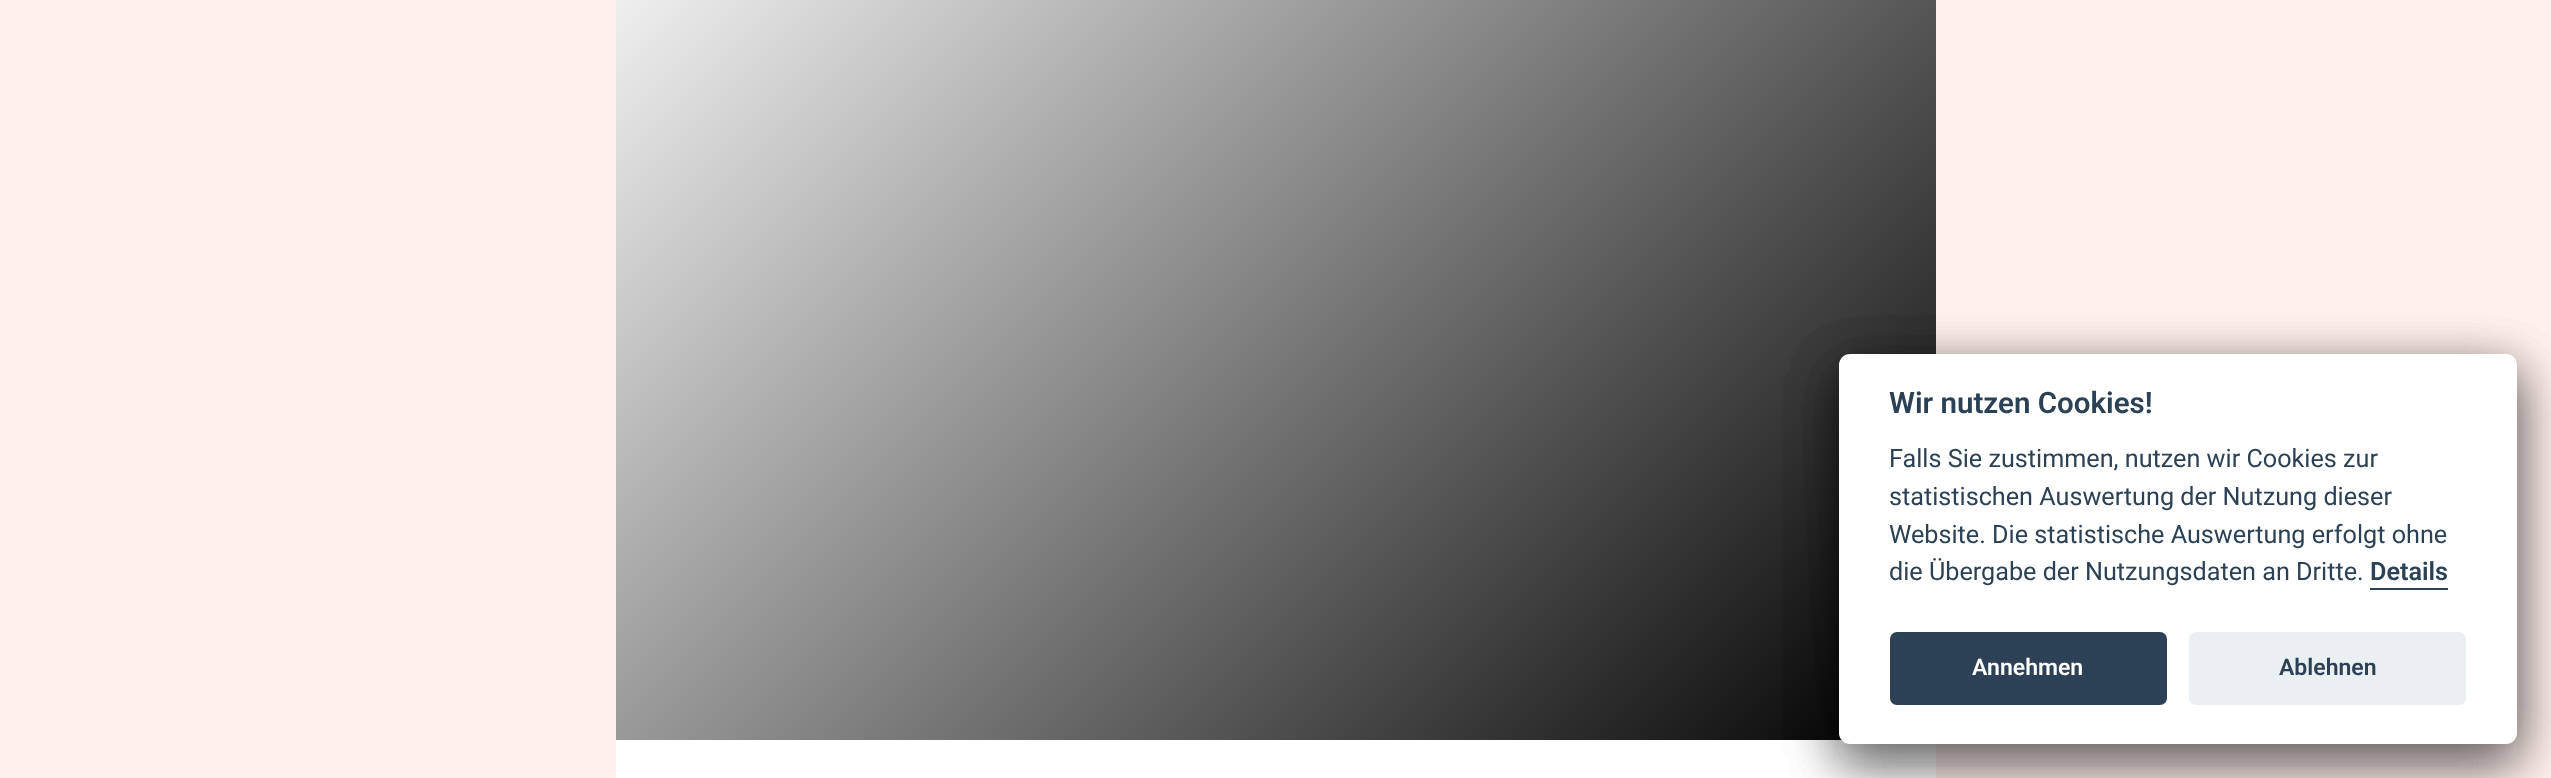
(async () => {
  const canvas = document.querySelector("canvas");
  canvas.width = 2551;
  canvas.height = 778;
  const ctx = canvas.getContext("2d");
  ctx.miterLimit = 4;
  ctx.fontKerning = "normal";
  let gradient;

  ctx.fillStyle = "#fff0ed";
  ctx.fillRect(0, 0, 2551, 778);
  ctx.fillStyle = "#ffffff";
  ctx.fillRect(616, 740, 1320, 38);
  gradient = ctx.createLinearGradient(726, -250, 1826, 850);
  gradient.addColorStop(0, "#ffffff");
  gradient.addColorStop(1, "#000000");
  ctx.fillStyle = gradient;
  ctx.fillRect(616, 0, 1320, 740);
  ctx.fillStyle = "rgba(2, 2, 3, 0.28)";
  ctx.filter = "blur(26px)";
  ctx.beginPath();
  ctx.roundRect(1839, 371, 678, 390, 11);
  ctx.fill();
  ctx.filter = "none";
  ctx.filter = "blur(26px)";
  ctx.beginPath();
  ctx.roundRect(1839, 371, 678, 390, 11);
  ctx.fill();
  ctx.filter = "none";
  ctx.filter = "blur(26px)";
  ctx.beginPath();
  ctx.roundRect(1839, 371, 678, 390, 11);
  ctx.fill();
  ctx.filter = "none";
  ctx.fillStyle = "#ffffff";
  ctx.beginPath();
  ctx.roundRect(1839, 354, 678, 390, 11);
  ctx.fill();
  ctx.fillStyle = "#2d4156";
  ctx.fillRect(2370, 588, 78, 2);
  ctx.beginPath();
  ctx.roundRect(1890, 632, 277, 73, 7);
  ctx.fill();
  ctx.fillStyle = "#eaeff2";
  ctx.beginPath();
  ctx.roundRect(2189, 632, 277, 73, 7);
  ctx.fill();
  ctx.font = "600 29.5px Roboto";
  ctx.fillStyle = "#2d4156";
  ctx.fillText("Wir nutzen Cookies!", 1889, 413);
  ctx.font = "25.2px Roboto";
  for (const [text, x, y] of [
    ["Falls Sie zustimmen, nutzen wir Cookies zur", 1889, 467],
    ["statistischen Auswertung der Nutzung dieser", 1889, 505],
    ["Website. Die statistische Auswertung erfolgt ohne", 1889, 543],
    ["die Übergabe der Nutzungsdaten an Dritte.", 1889, 580],
  ]) {
    ctx.fillText(text, x, y);
  }
  ctx.font = "600 25.2px Roboto";
  ctx.fillText("Details", 2370, 580);
  ctx.font = "600 23px Roboto";
  ctx.fillStyle = "#ffffff";
  ctx.fillText("Annehmen", 1972, 675);
  ctx.fillStyle = "#2d4156";
  ctx.fillText("Ablehnen", 2279, 675);
})();
